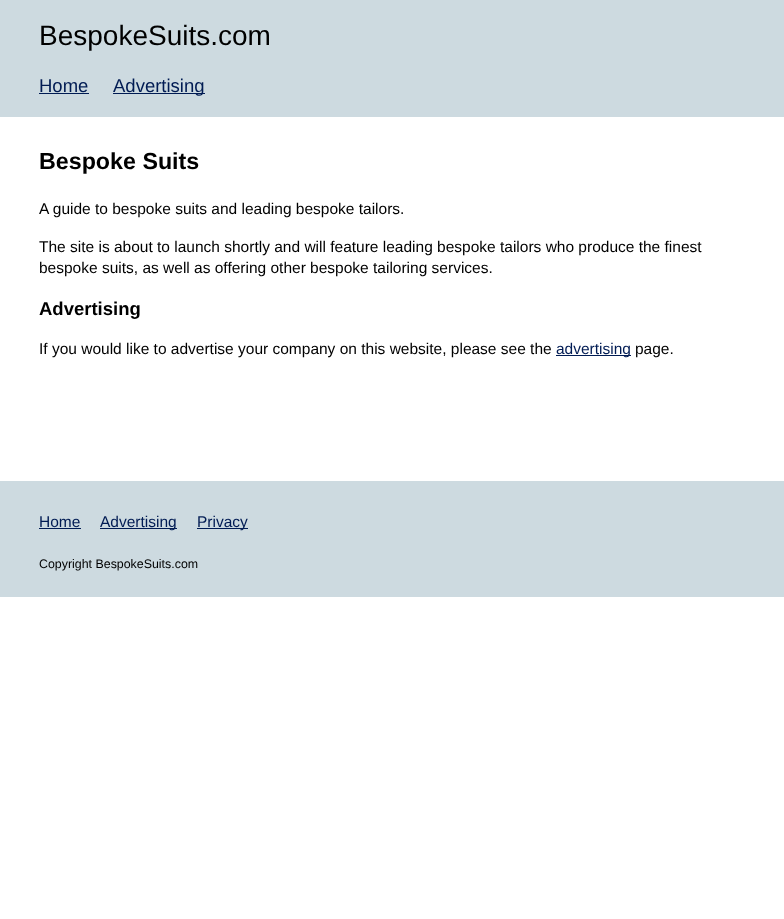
(async () => {
  const canvas = document.querySelector("canvas");
  canvas.width = 784;
  canvas.height = 919;
  const ctx = canvas.getContext("2d");
  ctx.miterLimit = 4;
  ctx.fontKerning = "normal";

  ctx.fillStyle = "#ffffff";
  ctx.fillRect(0, 0, 784, 919);
  for (const [x, y, w, h, color] of [
    [0, 0, 784, 117, "#cddae0"],
    [39, 93, 50, 1, "#001b53"],
    [113, 93, 92, 1, "#001b53"],
    [556, 355, 75, 1, "#001b53"],
    [0, 481, 784, 116, "#cddae0"],
    [39, 528, 42, 1, "#001b53"],
    [100, 528, 77, 1, "#001b53"],
    [197, 528, 51, 1, "#001b53"],
  ]) {
    ctx.fillStyle = color;
    ctx.fillRect(x, y, w, h);
  }
  ctx.font = "28px Liberation Sans";
  ctx.fillStyle = "#000000";
  ctx.fillText("BespokeSuits.com", 39, 45);
  ctx.font = "18.5px Liberation Sans";
  ctx.fillStyle = "#001b53";
  ctx.fillText("Home", 39, 92);
  ctx.fillText("Advertising", 113, 92);
  ctx.font = "bold 23.25px Liberation Sans";
  ctx.fillStyle = "#000000";
  ctx.fillText("Bespoke Suits", 39, 169);
  ctx.font = "15.5px Liberation Sans";
  for (const [text, x, y] of [
    ["A guide to bespoke suits and leading bespoke tailors.", 39, 214],
    ["The site is about to launch shortly and will feature leading bespoke tailors who produce the finest", 39, 252],
    ["bespoke suits, as well as offering other bespoke tailoring services.", 39, 273],
  ]) {
    ctx.fillText(text, x, y);
  }
  ctx.font = "bold 18.5px Liberation Sans";
  ctx.fillText("Advertising", 39, 315);
  ctx.font = "15.5px Liberation Sans";
  ctx.fillText("If you would like to advertise your company on this website, please see the", 39, 354);
  ctx.fillStyle = "#001b53";
  ctx.fillText("advertising", 556, 354);
  ctx.fillStyle = "#000000";
  ctx.fillText("page.", 635, 354);
  ctx.fillStyle = "#001b53";
  for (const [text, x, y] of [
    ["Home", 39, 527],
    ["Advertising", 100, 527],
    ["Privacy", 197, 527],
  ]) {
    ctx.fillText(text, x, y);
  }
  ctx.font = "12.4px Liberation Sans";
  ctx.fillStyle = "#000000";
  ctx.fillText("Copyright BespokeSuits.com", 39, 568);
})();
